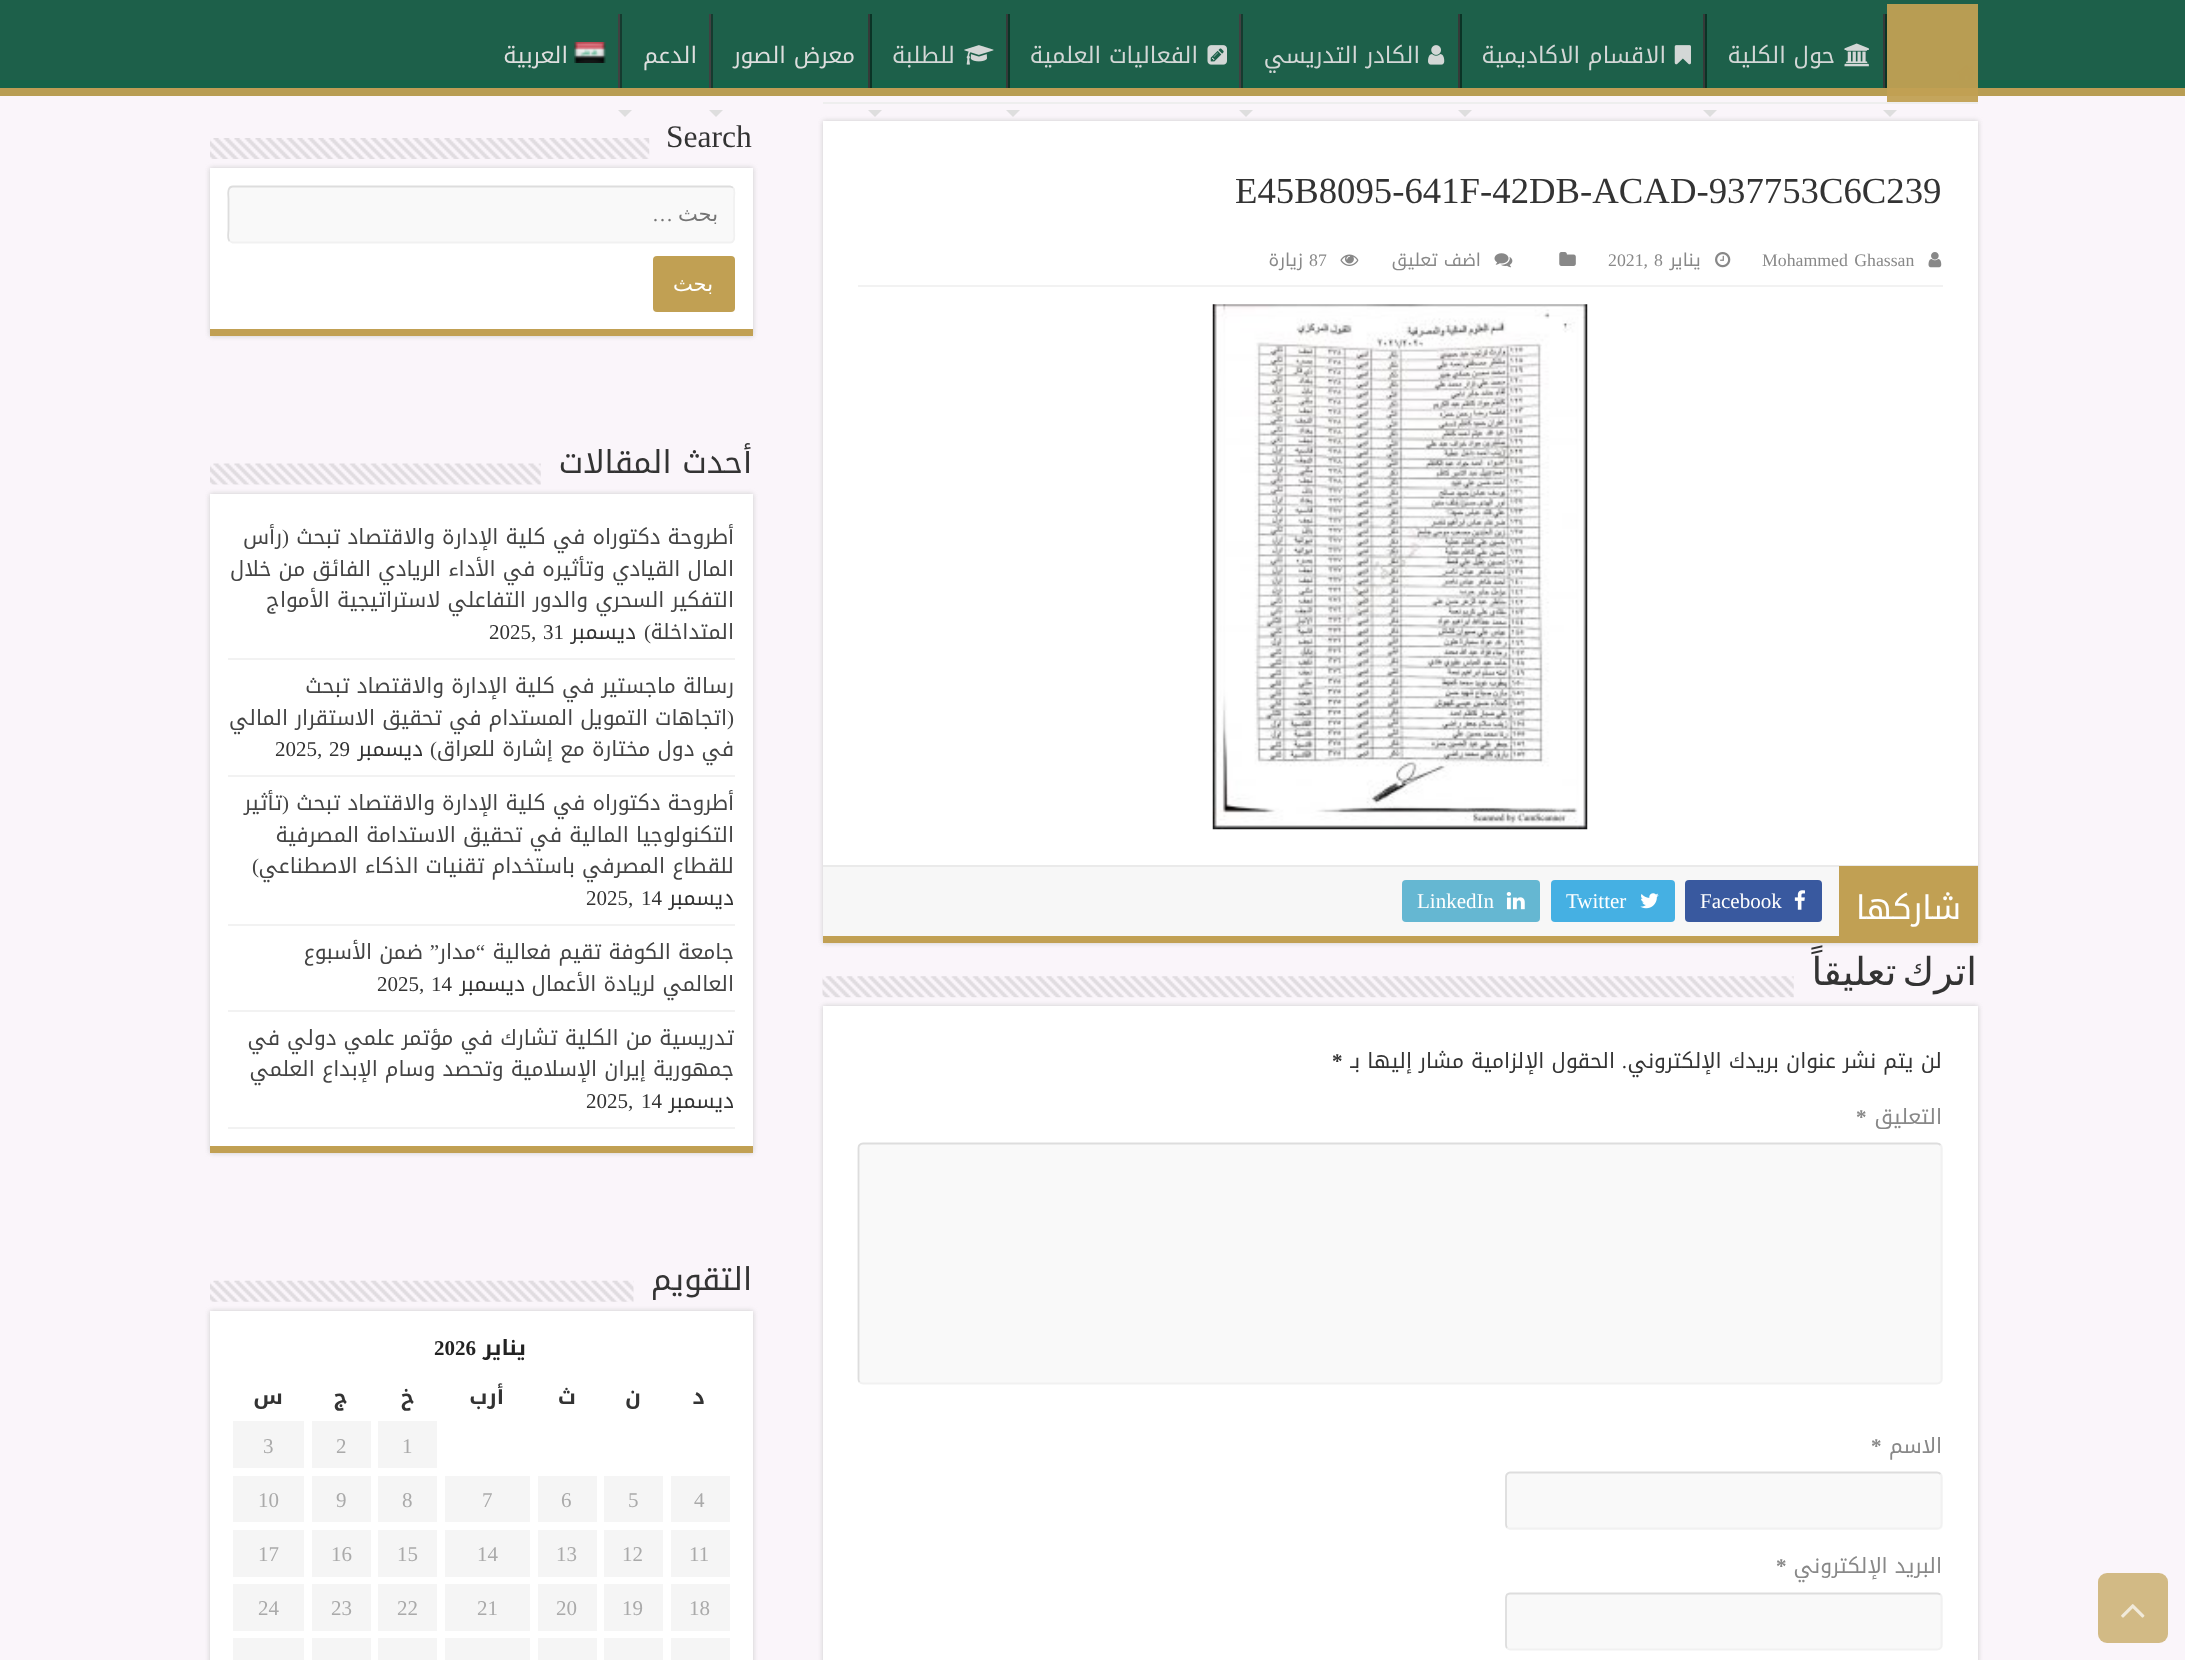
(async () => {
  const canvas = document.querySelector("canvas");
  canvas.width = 2185;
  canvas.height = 1660;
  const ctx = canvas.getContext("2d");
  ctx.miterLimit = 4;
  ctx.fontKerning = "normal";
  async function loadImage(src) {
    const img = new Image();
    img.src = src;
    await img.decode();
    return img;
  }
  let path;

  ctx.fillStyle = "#faf5fa";
  ctx.fillRect(0, 0, 2185, 1660);
  ctx.fillStyle = "#d2ba85";
  ctx.beginPath();
  ctx.roundRect(2098, 1573, 70, 70, 9);
  ctx.fill();
  ctx.drawImage(await loadImage("img/1.png"), 2121, 1604, 24, 14);
  ctx.fillStyle = "#ffffff";
  ctx.fillRect(0, 0, 2185, 2);
  ctx.drawImage(await loadImage("img/8.png"), 1956, 65, 20, 16);
  ctx.fillStyle = "rgba(17, 87, 64, 0.95)";
  ctx.fillRect(0, 0, 2185, 96);
  ctx.save();
  ctx.beginPath();
  ctx.rect(0, 0, 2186, 88);
  ctx.clip();
  ctx.fillStyle = "rgba(20, 100, 73, 0.95)";
  path = new Path2D("M-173-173H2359V261H-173ZM-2-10H2184C2185-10 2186-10 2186-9V79C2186 80 2185 80 2184 80H-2C-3 80-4 80-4 79V-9C-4-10-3-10-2-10Z");
  ctx.fill(path, "evenodd");
  ctx.restore();
  for (const [x, y, w, h, color] of [
    [0, 88, 2185, 8, "rgba(193, 160, 83, 0.95)"],
    [1887, 4, 91, 98, "rgba(193, 160, 83, 0.95)"],
    [1885, 14, 2, 74, "rgba(9, 49, 36, 0.95)"],
    [1883, 14, 2, 74, "rgba(56, 56, 56, 0.95)"],
  ]) {
    ctx.fillStyle = color;
    ctx.fillRect(x, y, w, h);
  }
  ctx.drawImage(await loadImage("img/2.png"), 1844, 43, 25, 24);
  ctx.fillStyle = "#cacaca";
  ctx.filter = "blur(2.5px)";
  ctx.beginPath();
  ctx.rect(823, 121, 1155, 822);
  ctx.fill();
  ctx.filter = "none";
  ctx.fillStyle = "#dedede";
  path = new Path2D("M1883 110H1897L1890 117Z");
  ctx.fill(path);
  ctx.fillStyle = "rgba(9, 49, 36, 0.95)";
  ctx.fillRect(1705, 14, 2, 74);
  ctx.fillStyle = "rgba(56, 56, 56, 0.95)";
  ctx.fillRect(1703, 14, 2, 74);
  ctx.drawImage(await loadImage("img/3.png"), 1674, 45, 17, 20);
  ctx.fillStyle = "#dedede";
  path = new Path2D("M1703 110H1717L1710 117Z");
  ctx.fill(path);
  ctx.fillStyle = "rgba(9, 49, 36, 0.95)";
  ctx.fillRect(1460, 14, 2, 74);
  ctx.fillStyle = "rgba(56, 56, 56, 0.95)";
  ctx.fillRect(1458, 14, 2, 74);
  ctx.drawImage(await loadImage("img/4.png"), 1428, 45, 17, 20);
  ctx.fillStyle = "#dedede";
  path = new Path2D("M1458 110H1472L1465 117Z");
  ctx.fill(path);
  ctx.fillStyle = "#153b2f";
  ctx.fillRect(1241, 14, 2, 74);
  ctx.fillStyle = "#424142";
  ctx.fillRect(1239, 14, 2, 74);
  ctx.drawImage(await loadImage("img/5.png"), 1207, 45, 20, 20);
  ctx.fillStyle = "#dedede";
  path = new Path2D("M1239 110H1253L1246 117Z");
  ctx.fill(path);
  ctx.fillStyle = "rgba(9, 49, 36, 0.95)";
  ctx.fillRect(1008, 14, 2, 74);
  ctx.fillStyle = "rgba(56, 56, 56, 0.95)";
  ctx.fillRect(1006, 14, 2, 74);
  ctx.drawImage(await loadImage("img/6.png"), 964, 45, 30, 20);
  ctx.fillStyle = "#dedede";
  path = new Path2D("M1006 110H1020L1013 117Z");
  ctx.fill(path);
  ctx.fillStyle = "rgba(9, 49, 36, 0.95)";
  ctx.fillRect(870, 14, 2, 74);
  ctx.fillStyle = "rgba(56, 56, 56, 0.95)";
  ctx.fillRect(868, 14, 2, 74);
  ctx.fillStyle = "#dedede";
  path = new Path2D("M868 110H882L875 117Z");
  ctx.fill(path);
  ctx.fillStyle = "#153b2f";
  ctx.fillRect(711, 14, 2, 74);
  ctx.fillStyle = "#424142";
  ctx.fillRect(709, 14, 2, 74);
  ctx.fillStyle = "#dedede";
  path = new Path2D("M709 110H723L716 117Z");
  ctx.fill(path);
  ctx.fillStyle = "#153b2f";
  ctx.fillRect(620, 14, 2, 74);
  ctx.fillStyle = "#424142";
  ctx.fillRect(618, 14, 2, 74);
  ctx.drawImage(await loadImage("img/7.png"), 574, 42, 32, 21);
  ctx.fillStyle = "#dedede";
  path = new Path2D("M618 110H632L625 117Z");
  ctx.fill(path);
  for (const [x, y, w, h, color] of [
    [823, 102, 1155, 2, "#eeeeee"],
    [823, 121, 1155, 744, "#ffffff"],
    [823, 936, 1155, 7, "#c1a053"],
    [858, 285, 1085, 2, "#f2f2f2"],
  ]) {
    ctx.fillStyle = color;
    ctx.fillRect(x, y, w, h);
  }
  ctx.drawImage(await loadImage("img/9.png"), 1928, 252, 14, 16);
  ctx.drawImage(await loadImage("img/10.png"), 1715, 252, 16, 16);
  ctx.drawImage(await loadImage("img/11.png"), 1559, 252, 17, 14);
  ctx.drawImage(await loadImage("img/12.png"), 1494, 253, 19, 15);
  ctx.drawImage(await loadImage("img/13.png"), 1340, 254, 19, 12);
  ctx.drawImage(await loadImage("img/14.png"), 1212, 304, 376, 526);
  for (const [x, y, w, h, color] of [
    [823, 867, 1016, 69, "#f7f7f7"],
    [823, 865, 1155, 2, "#eaeaea"],
    [1839, 866, 139, 70, "#c1a053"],
  ]) {
    ctx.fillStyle = color;
    ctx.fillRect(x, y, w, h);
  }
  ctx.fillStyle = "#39599f";
  ctx.beginPath();
  ctx.roundRect(1685, 880, 137, 42, 4);
  ctx.fill();
  ctx.drawImage(await loadImage("img/15.png"), 1794, 890, 11, 20);
  ctx.fillStyle = "#45b0e3";
  ctx.beginPath();
  ctx.roundRect(1551, 880, 124, 42, 4);
  ctx.fill();
  ctx.drawImage(await loadImage("img/16.png"), 1640, 893, 19, 16);
  ctx.fillStyle = "#65b7d2";
  ctx.beginPath();
  ctx.roundRect(1402, 880, 138, 42, 4);
  ctx.fill();
  ctx.drawImage(await loadImage("img/17.png"), 1506, 892, 19, 18);
  ctx.drawImage(await loadImage("img/18.png"), 822, 976, 972, 22);
  ctx.fillStyle = "#cacaca";
  ctx.filter = "blur(2.5px)";
  ctx.beginPath();
  ctx.rect(823, 1006, 1155, 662);
  ctx.fill();
  ctx.filter = "none";
  ctx.fillStyle = "#ffffff";
  ctx.fillRect(823, 1006, 1155, 654);
  ctx.fillStyle = "#f9f9f9";
  ctx.beginPath();
  ctx.roundRect(858, 1143, 1085, 241, 5);
  ctx.fill();
  path = new Path2D("M1940.5 1145C1941 1145.5 1941.5 1147 1941.5 1148V1379C1941.5 1380 1941 1381.5 1940.5 1382C1939.5 1383 1938.5 1383.5 1937 1383.5H863C861.5 1383.5 860.5 1383 859.5 1382");
  ctx.strokeStyle = "#f1f1f1";
  ctx.lineWidth = 1.8;
  ctx.stroke(path);
  path = new Path2D("M859.5 1382C859 1381.5 858.5 1380 858.5 1379V1148C858.5 1147 859 1145.5 859.5 1145C860.5 1144 861.5 1143.5 863 1143.5H1937C1938.5 1143.5 1939.5 1144 1940.5 1145");
  ctx.strokeStyle = "#dddddd";
  ctx.stroke(path);
  ctx.beginPath();
  ctx.roundRect(1505, 1472, 438, 58, 5);
  ctx.fill();
  path = new Path2D("M1940.5 1474C1941 1474.5 1941.5 1476 1941.5 1477V1524C1941.5 1525.5 1941 1526.5 1940.5 1527.5C1939.5 1528 1938.5 1528.5 1937 1528.5H1510C1509 1528.5 1508 1528 1507 1527.5");
  ctx.strokeStyle = "#f1f1f1";
  ctx.stroke(path);
  path = new Path2D("M1507 1527.5C1506.5 1526.5 1506 1525.5 1506 1524V1477C1506 1476 1506.5 1474.5 1507 1474C1508 1473 1509 1472.5 1510 1472.5H1937C1938.5 1472.5 1939.5 1473 1940.5 1474");
  ctx.strokeStyle = "#dddddd";
  ctx.stroke(path);
  ctx.beginPath();
  ctx.roundRect(1505, 1593, 438, 57, 5);
  ctx.fill();
  path = new Path2D("M1940.5 1594.5C1941 1595.5 1941.5 1596.5 1941.5 1598V1645C1941.5 1646 1941 1647.5 1940.5 1648C1939.5 1649 1938.5 1649.5 1937 1649.5H1510C1509 1649.5 1508 1649 1507 1648");
  ctx.strokeStyle = "#f1f1f1";
  ctx.stroke(path);
  path = new Path2D("M1507 1648C1506.5 1647.5 1506 1646 1506 1645V1598C1506 1596.5 1506.5 1595.5 1507 1594.5C1508 1594 1509 1593.5 1510 1593.5H1937C1938.5 1593.5 1939.5 1594 1940.5 1594.5");
  ctx.strokeStyle = "#dddddd";
  ctx.stroke(path);
  ctx.drawImage(await loadImage("img/19.png"), 210, 138, 440, 21);
  ctx.fillStyle = "#cacaca";
  ctx.filter = "blur(2.5px)";
  ctx.beginPath();
  ctx.rect(210, 168, 543, 168);
  ctx.fill();
  ctx.filter = "none";
  ctx.fillStyle = "#ffffff";
  ctx.fillRect(210, 168, 543, 161);
  ctx.fillStyle = "#c1a053";
  ctx.fillRect(210, 329, 543, 7);
  ctx.fillStyle = "#f9f9f9";
  ctx.beginPath();
  ctx.roundRect(228, 186, 507, 57, 5);
  ctx.fill();
  path = new Path2D("M733 187.5C735.5 190 734 196.5 734 198.5V230C734 233.5 736 242.5 730 242.5H232.5L229.5 241");
  ctx.strokeStyle = "#f1f1f1";
  ctx.stroke(path);
  path = new Path2D("M229.5 241C227 238.5 228.5 232 228.5 230V198.5C228.5 195.5 226.5 186.5 233 186.5H730L733 187.5");
  ctx.strokeStyle = "#dddddd";
  ctx.stroke(path);
  ctx.fillStyle = "#c1a053";
  ctx.beginPath();
  ctx.roundRect(653, 256, 82, 56, 4);
  ctx.fill();
  ctx.drawImage(await loadImage("img/20.png"), 210, 463, 331, 22);
  ctx.fillStyle = "#cacaca";
  ctx.filter = "blur(2.5px)";
  ctx.beginPath();
  ctx.rect(210, 494, 543, 659);
  ctx.fill();
  ctx.filter = "none";
  for (const [x, y, w, h, color] of [
    [210, 494, 543, 652, "#ffffff"],
    [210, 1146, 543, 7, "#c1a053"],
    [228, 658, 507, 2, "#f2f2f2"],
    [228, 775, 507, 2, "#f2f2f2"],
    [228, 924, 507, 2, "#f2f2f2"],
    [228, 1010, 507, 2, "#f2f2f2"],
    [228, 1127, 507, 2, "#f2f2f2"],
  ]) {
    ctx.fillStyle = color;
    ctx.fillRect(x, y, w, h);
  }
  ctx.drawImage(await loadImage("img/21.png"), 210, 1280, 424, 22);
  ctx.fillStyle = "#cacaca";
  ctx.filter = "blur(2.5px)";
  ctx.beginPath();
  ctx.rect(210, 1311, 543, 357);
  ctx.fill();
  ctx.filter = "none";
  for (const [x, y, w, h, color] of [
    [210, 1311, 543, 349, "#ffffff"],
    [378, 1421, 59, 47, "#f5f5f5"],
    [312, 1421, 59, 47, "#f5f5f5"],
    [233, 1421, 71, 47, "#f5f5f5"],
    [671, 1476, 59, 46, "#f5f5f5"],
    [604, 1476, 59, 46, "#f5f5f5"],
    [538, 1476, 59, 46, "#f5f5f5"],
    [445, 1476, 85, 46, "#f5f5f5"],
    [378, 1476, 59, 46, "#f5f5f5"],
    [312, 1476, 59, 46, "#f5f5f5"],
    [233, 1476, 71, 46, "#f5f5f5"],
    [671, 1530, 59, 47, "#f5f5f5"],
    [604, 1530, 59, 47, "#f5f5f5"],
    [538, 1530, 59, 47, "#f5f5f5"],
    [445, 1530, 85, 47, "#f5f5f5"],
    [378, 1530, 59, 47, "#f5f5f5"],
    [312, 1530, 59, 47, "#f5f5f5"],
    [233, 1530, 71, 47, "#f5f5f5"],
    [671, 1584, 59, 47, "#f5f5f5"],
    [604, 1584, 59, 47, "#f5f5f5"],
    [538, 1584, 59, 47, "#f5f5f5"],
    [445, 1584, 85, 47, "#f5f5f5"],
    [378, 1584, 59, 47, "#f5f5f5"],
    [312, 1584, 59, 47, "#f5f5f5"],
    [233, 1584, 71, 47, "#f5f5f5"],
    [671, 1638, 59, 22, "#f5f5f5"],
    [604, 1638, 59, 22, "#f5f5f5"],
    [538, 1638, 59, 22, "#f5f5f5"],
    [445, 1638, 85, 22, "#f5f5f5"],
    [378, 1638, 59, 22, "#f5f5f5"],
    [312, 1638, 59, 22, "#f5f5f5"],
    [233, 1638, 71, 22, "#f5f5f5"],
  ]) {
    ctx.fillStyle = color;
    ctx.fillRect(x, y, w, h);
  }
  ctx.direction = "rtl";
  ctx.font = "22.75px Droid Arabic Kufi";
  ctx.fillStyle = "#d3d7d6";
  for (const [text, x, y] of [
    ["حول الكلية", 1835, 63],
    ["الاقسام الاكاديمية", 1666, 63],
    ["الكادر التدريسي", 1420, 63],
    ["الفعاليات العلمية", 1198, 63],
    ["للطلبة", 955, 63],
  ]) {
    ctx.fillText(text, x, y);
  }
  ctx.fillStyle = "#dedede";
  for (const [text, x, y] of [
    ["معرض الصور", 855, 63],
    ["الدعم", 697, 63],
    ["العربية", 568, 63],
  ]) {
    ctx.fillText(text, x, y);
  }
  ctx.direction = "ltr";
  ctx.font = "36.75px Liberation Serif";
  ctx.fillStyle = "#333333";
  ctx.fillText("E45B8095-641F-42DB-ACAD-937753C6C239", 1235, 203);
  ctx.wordSpacing = "2px";
  ctx.font = "17.75px Liberation Serif";
  ctx.fillStyle = "#888888";
  ctx.fillText("Mohammed Ghassan", 1762, 266);
  ctx.wordSpacing = "0px";
  ctx.direction = "rtl";
  ctx.font = "17.75px Droid Arabic Kufi";
  ctx.fillText("يناير", 1701, 266);
  ctx.direction = "ltr";
  ctx.font = "17.75px Liberation Serif";
  ctx.fillText("8", 1654, 266);
  ctx.fillText("2021,", 1608, 266);
  ctx.direction = "rtl";
  ctx.font = "17.75px Droid Arabic Kufi";
  ctx.fillText("اضف تعليق", 1481, 266);
  ctx.direction = "ltr";
  ctx.font = "17.75px Liberation Serif";
  ctx.fillText("87", 1309, 266);
  ctx.direction = "rtl";
  ctx.font = "17.75px Droid Arabic Kufi";
  ctx.fillText("زيارة", 1303, 266);
  ctx.font = "32.5px Droid Arabic Kufi";
  ctx.fillStyle = "#ffffff";
  ctx.fillText("شاركها", 1961, 919);
  ctx.direction = "ltr";
  ctx.font = "21px Liberation Serif";
  for (const [text, x, y] of [
    ["Facebook", 1700, 908],
    ["Twitter", 1566, 908],
    ["LinkedIn", 1417, 908],
  ]) {
    ctx.fillText(text, x, y);
  }
  ctx.wordSpacing = "-6px";
  ctx.direction = "rtl";
  ctx.font = "38.5px DejaVu Sans";
  ctx.fillStyle = "#333333";
  ctx.fillText("اترك تعليقاً", 1977, 985);
  ctx.wordSpacing = "0px";
  ctx.font = "21px Droid Arabic Kufi";
  ctx.fillText("لن يتم نشر عنوان بريدك الإلكتروني", 1942, 1068);
  ctx.fillText("الحقول الإلزامية مشار إليها بـ", 1615, 1068);
  ctx.direction = "ltr";
  ctx.font = "bold 21px Liberation Serif";
  ctx.fillText("*", 1332, 1068);
  ctx.direction = "rtl";
  ctx.font = "21px Liberation Serif";
  ctx.fillText(".", 1627, 1068);
  ctx.font = "21px Droid Arabic Kufi";
  ctx.fillStyle = "#888888";
  ctx.fillText("التعليق", 1942, 1124);
  ctx.direction = "ltr";
  ctx.font = "bold 21px Liberation Serif";
  ctx.fillText("*", 1856, 1124);
  ctx.direction = "rtl";
  ctx.font = "21px Droid Arabic Kufi";
  ctx.fillText("الاسم", 1942, 1453);
  ctx.direction = "ltr";
  ctx.font = "bold 21px Liberation Serif";
  ctx.fillText("*", 1871, 1453);
  ctx.direction = "rtl";
  ctx.font = "21px Droid Arabic Kufi";
  ctx.fillText("البريد الإلكتروني", 1942, 1573);
  ctx.direction = "ltr";
  ctx.font = "bold 21px Liberation Serif";
  ctx.fillText("*", 1776, 1573);
  ctx.font = "31.5px Liberation Serif";
  ctx.fillStyle = "#333333";
  ctx.fillText("Search", 666, 147);
  ctx.direction = "rtl";
  ctx.font = "21px DejaVu Sans";
  ctx.fillStyle = "#757575";
  ctx.fillText("بحث", 718, 221);
  ctx.font = "21px Liberation Serif";
  ctx.fillText("…", 673, 221);
  ctx.font = "21px DejaVu Sans";
  ctx.fillStyle = "#ffffff";
  ctx.fillText("بحث", 713, 291);
  ctx.font = "31.5px Droid Arabic Kufi";
  ctx.fillStyle = "#333333";
  ctx.fillText("أحدث المقالات", 752, 473);
  ctx.font = "21px Droid Arabic Kufi";
  ctx.fillStyle = "#444444";
  ctx.fillText("أطروحة دكتوراه في كلية الإدارة والاقتصاد تبحث", 734, 544);
  ctx.font = "21px Liberation Serif";
  ctx.fillText("(", 289, 544);
  ctx.font = "21px Droid Arabic Kufi";
  for (const [text, x, y] of [
    ["رأس", 282, 544],
    ["المال القيادي وتأثيره في الأداء الريادي الفائق من خلال", 734, 576],
    ["التفكير السحري والدور التفاعلي لاستراتيجية الأمواج", 734, 607],
    ["المتداخلة", 734, 639],
  ]) {
    ctx.fillText(text, x, y);
  }
  ctx.font = "21px Liberation Serif";
  ctx.fillText(")", 651, 639);
  ctx.font = "21px Droid Arabic Kufi";
  ctx.fillStyle = "#333333";
  ctx.fillText("ديسمبر", 636, 639);
  ctx.direction = "ltr";
  ctx.font = "21px Liberation Serif";
  ctx.fillText("31", 543, 639);
  ctx.fillText("2025,", 489, 639);
  ctx.direction = "rtl";
  ctx.font = "21px Droid Arabic Kufi";
  ctx.fillStyle = "#444444";
  ctx.fillText("رسالة ماجستير في كلية الإدارة والاقتصاد تبحث", 734, 693);
  ctx.font = "21px Liberation Serif";
  ctx.fillText("(", 734, 725);
  ctx.font = "21px Droid Arabic Kufi";
  ctx.fillText("اتجاهات التمويل المستدام في تحقيق الاستقرار المالي", 727, 725);
  ctx.fillText("في دول مختارة مع إشارة للعراق", 734, 756);
  ctx.font = "21px Liberation Serif";
  ctx.fillText(")", 437, 756);
  ctx.font = "21px Droid Arabic Kufi";
  ctx.fillStyle = "#333333";
  ctx.fillText("ديسمبر", 423, 756);
  ctx.direction = "ltr";
  ctx.font = "21px Liberation Serif";
  ctx.fillText("29", 329, 756);
  ctx.fillText("2025,", 275, 756);
  ctx.direction = "rtl";
  ctx.font = "21px Droid Arabic Kufi";
  ctx.fillStyle = "#444444";
  ctx.fillText("أطروحة دكتوراه في كلية الإدارة والاقتصاد تبحث", 734, 810);
  ctx.font = "21px Liberation Serif";
  ctx.fillText("(", 289, 810);
  ctx.font = "21px Droid Arabic Kufi";
  for (const [text, x, y] of [
    ["تأثير", 282, 810],
    ["التكنولوجيا المالية في تحقيق الاستدامة المصرفية", 734, 842],
    ["للقطاع المصرفي باستخدام تقنيات الذكاء الاصطناعي", 734, 873],
  ]) {
    ctx.fillText(text, x, y);
  }
  ctx.font = "21px Liberation Serif";
  ctx.fillText(")", 259, 873);
  ctx.font = "21px Droid Arabic Kufi";
  ctx.fillStyle = "#333333";
  ctx.fillText("ديسمبر", 734, 905);
  ctx.direction = "ltr";
  ctx.font = "21px Liberation Serif";
  ctx.fillText("14", 641, 905);
  ctx.fillText("2025,", 586, 905);
  ctx.direction = "rtl";
  ctx.font = "21px Droid Arabic Kufi";
  ctx.fillStyle = "#444444";
  ctx.fillText("جامعة الكوفة تقيم فعالية", 734, 959);
  ctx.font = "21px Liberation Serif";
  ctx.fillText("“", 485, 959);
  ctx.fillText("”", 439, 959);
  ctx.font = "21px Droid Arabic Kufi";
  for (const [text, x, y] of [
    ["مدار", 476, 959],
    ["ضمن الأسبوع", 423, 959],
    ["العالمي لريادة الأعمال", 734, 991],
  ]) {
    ctx.fillText(text, x, y);
  }
  ctx.fillStyle = "#333333";
  ctx.fillText("ديسمبر", 525, 991);
  ctx.direction = "ltr";
  ctx.font = "21px Liberation Serif";
  ctx.fillText("14", 431, 991);
  ctx.fillText("2025,", 377, 991);
  ctx.direction = "rtl";
  ctx.font = "21px Droid Arabic Kufi";
  ctx.fillStyle = "#444444";
  ctx.fillText("تدريسية من الكلية تشارك في مؤتمر علمي دولي في", 734, 1045);
  ctx.fillText("جمهورية إيران الإسلامية وتحصد وسام الإبداع العلمي", 734, 1076);
  ctx.fillStyle = "#333333";
  ctx.fillText("ديسمبر", 734, 1108);
  ctx.direction = "ltr";
  ctx.font = "21px Liberation Serif";
  ctx.fillText("14", 641, 1108);
  ctx.fillText("2025,", 586, 1108);
  ctx.direction = "rtl";
  ctx.font = "31.5px Droid Arabic Kufi";
  ctx.fillText("التقويم", 752, 1290);
  ctx.font = "bold 21px Droid Arabic Kufi";
  ctx.fillStyle = "#222222";
  ctx.fillText("يناير", 526, 1355);
  ctx.direction = "ltr";
  ctx.font = "bold 21px Liberation Serif";
  ctx.fillText("2026", 434, 1355);
  ctx.direction = "rtl";
  ctx.font = "bold 21px Droid Arabic Kufi";
  ctx.fillStyle = "#333333";
  for (const [text, x, y] of [
    ["د", 705, 1404],
    ["ن", 641, 1404],
    ["ث", 576, 1404],
    ["أرب", 504, 1404],
    ["خ", 415, 1404],
    ["ج", 348, 1404],
    ["س", 283, 1404],
  ]) {
    ctx.fillText(text, x, y);
  }
  ctx.direction = "ltr";
  ctx.font = "21px Liberation Serif";
  ctx.fillStyle = "#aaaaaa";
  for (const [text, x, y] of [
    ["1", 402, 1453],
    ["2", 336, 1453],
    ["3", 263, 1453],
    ["4", 694, 1507],
    ["5", 628, 1507],
    ["6", 561, 1507],
    ["7", 482, 1507],
    ["8", 402, 1507],
    ["9", 336, 1507],
    ["10", 258, 1507],
    ["11", 689, 1561],
    ["12", 622, 1561],
    ["13", 556, 1561],
    ["14", 477, 1561],
    ["15", 397, 1561],
    ["16", 331, 1561],
    ["17", 258, 1561],
    ["18", 689, 1615],
    ["19", 622, 1615],
    ["20", 556, 1615],
    ["21", 477, 1615],
    ["22", 397, 1615],
    ["23", 331, 1615],
    ["24", 258, 1615],
  ]) {
    ctx.fillText(text, x, y);
  }
})();
